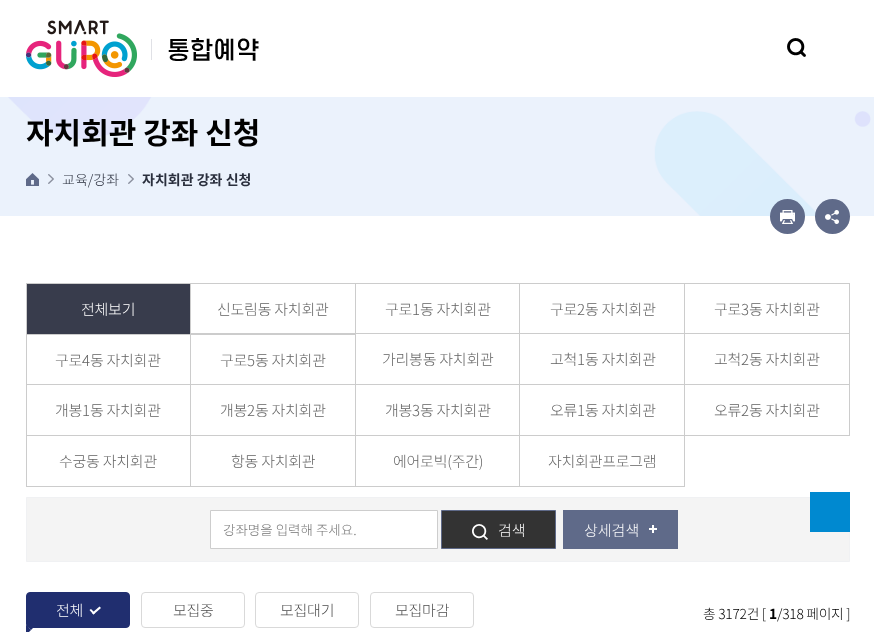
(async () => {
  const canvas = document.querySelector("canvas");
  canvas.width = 876;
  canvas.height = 632;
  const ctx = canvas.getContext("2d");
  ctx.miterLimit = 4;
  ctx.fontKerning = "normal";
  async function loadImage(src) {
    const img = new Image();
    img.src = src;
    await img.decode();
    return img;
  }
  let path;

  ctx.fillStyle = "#ffffff";
  ctx.fillRect(0, 0, 876, 632);
  ctx.drawImage(await loadImage("img/1.png"), 26, 20, 111, 57);
  ctx.fillStyle = "#e0e1e6";
  ctx.fillRect(151, 39, 1, 21);
  ctx.drawImage(await loadImage("img/2.png"), 168, 38, 91, 23);
  ctx.drawImage(await loadImage("img/3.png"), 787, 38, 19, 19);
  ctx.drawImage(await loadImage("img/4.png"), 0, 97, 874, 119);
  ctx.drawImage(await loadImage("img/5.png"), 26, 173, 13, 13);
  ctx.drawImage(await loadImage("img/6.png"), 48, 174, 6, 10);
  ctx.drawImage(await loadImage("img/6.png"), 128, 174, 6, 10);
  ctx.fillStyle = "#5f6a89";
  ctx.beginPath();
  ctx.arc(787.5, 216.5, 17.5, 0, Math.PI * 2);
  ctx.fill();
  ctx.drawImage(await loadImage("img/7.png"), 780, 210, 15, 14);
  ctx.beginPath();
  ctx.arc(832.5, 216.5, 17.5, 0, Math.PI * 2);
  ctx.fill();
  ctx.drawImage(await loadImage("img/8.png"), 825, 210, 14, 14);
  for (const [x, y, w, h, color] of [
    [26, 283, 824, 1, "#cccccc"],
    [26, 334, 330, 1, "#cccccc"],
    [190, 334, 1, 153, "#cccccc"],
    [26, 384, 165, 1, "#cccccc"],
    [519, 283, 1, 204, "#cccccc"],
    [684, 283, 1, 204, "#cccccc"],
    [849, 283, 1, 153, "#cccccc"],
    [355, 334, 1, 153, "#cccccc"],
    [26, 435, 824, 1, "#cccccc"],
    [26, 486, 659, 1, "#cccccc"],
    [26, 283, 1, 204, "#cccccc"],
    [27, 284, 163, 50, "#383c4c"],
    [190, 283, 1, 51, "#cccccc"],
    [355, 283, 1, 51, "#cccccc"],
    [191, 333, 165, 1, "#cccccc"],
    [356, 333, 164, 1, "#cccccc"],
    [520, 333, 165, 1, "#cccccc"],
    [685, 333, 165, 1, "#cccccc"],
    [191, 384, 659, 1, "#cccccc"],
  ]) {
    ctx.fillStyle = color;
    ctx.fillRect(x, y, w, h);
  }
  ctx.fillStyle = "#f4f4f4";
  ctx.beginPath();
  ctx.rect(26.5, 497.5, 823, 64);
  ctx.fill();
  ctx.strokeStyle = "#f0f1f3";
  ctx.stroke();
  ctx.fillStyle = "#ffffff";
  ctx.beginPath();
  ctx.rect(210.5, 510.5, 227, 38);
  ctx.fill();
  ctx.strokeStyle = "#cdcdcd";
  ctx.stroke();
  ctx.fillStyle = "#333333";
  ctx.beginPath();
  ctx.rect(441.5, 510.5, 114, 38);
  ctx.fill();
  ctx.strokeStyle = "#5f6a89";
  ctx.stroke();
  ctx.drawImage(await loadImage("img/9.png"), 472, 524, 16, 16);
  for (const [x, y, w, h, color] of [
    [563, 510, 115, 39, "#5f6a89"],
    [652, 525, 2, 8, "#ffffff"],
    [649, 528, 8, 2, "#ffffff"],
  ]) {
    ctx.fillStyle = color;
    ctx.fillRect(x, y, w, h);
  }
  ctx.fillStyle = "#202e6f";
  ctx.beginPath();
  ctx.roundRect(26.5, 592.5, 103, 35, 3.5);
  ctx.fill();
  ctx.strokeStyle = "#202e6f";
  ctx.stroke();
  ctx.fillStyle = "#ffffff";
  path = new Path2D("M92 613L99.5 606.5L101 608L93.5 614.5Z");
  ctx.fill(path);
  path = new Path2D("M89.5 610L91 609L95 613L93.5 614.5Z");
  ctx.fill(path);
  ctx.fillStyle = "#202e6f";
  path = new Path2D("M26 625H36L31 630Z");
  ctx.fill(path);
  path = new Path2D("M26 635V625L31 630Z");
  ctx.fill(path);
  ctx.beginPath();
  ctx.roundRect(141.5, 592.5, 103, 35, 3.5);
  ctx.strokeStyle = "#d9d9d9";
  ctx.stroke();
  ctx.beginPath();
  ctx.roundRect(255.5, 592.5, 103, 35, 3.5);
  ctx.stroke();
  ctx.beginPath();
  ctx.roundRect(370.5, 592.5, 103, 35, 3.5);
  ctx.stroke();
  ctx.fillStyle = "#0089d0";
  ctx.fillRect(810, 492, 40, 40);
  ctx.font = "bold 30px Noto Sans CJK KR";
  ctx.fillStyle = "#000000";
  ctx.fillText("자치회관 강좌 신청", 26, 144);
  ctx.font = "300 14px Noto Sans CJK KR";
  ctx.fillStyle = "#2a2f3d";
  ctx.fillText("교육/강좌", 62, 185);
  ctx.font = "bold 14px Noto Sans CJK KR";
  ctx.fillText("자치회관 강좌 신청", 142, 185);
  ctx.letterSpacing = "-0.25px";
  ctx.font = "300 15px Noto Sans CJK KR";
  ctx.fillStyle = "#ffffff";
  ctx.fillText("전체보기", 81, 315);
  ctx.fillStyle = "#636363";
  for (const [text, x, y] of [
    ["신도림동 자치회관", 217, 315],
    ["구로1동 자치회관", 385, 315],
    ["구로2동 자치회관", 550, 315],
    ["구로3동 자치회관", 714, 315],
    ["구로4동 자치회관", 55, 366],
    ["구로5동 자치회관", 220, 366],
    ["가리봉동 자치회관", 382, 365],
    ["고척1동 자치회관", 550, 365],
    ["고척2동 자치회관", 714, 365],
    ["개봉1동 자치회관", 55, 416],
    ["개봉2동 자치회관", 220, 416],
    ["개봉3동 자치회관", 385, 416],
    ["오류1동 자치회관", 550, 416],
    ["오류2동 자치회관", 714, 416],
    ["수궁동 자치회관", 59, 467],
    ["항동 자치회관", 231, 467],
    ["에어로빅(주간)", 393, 467],
    ["자치회관프로그램", 548, 467],
  ]) {
    ctx.fillText(text, x, y);
  }
  ctx.letterSpacing = "0px";
  ctx.font = "300 13.5px Noto Sans CJK KR";
  ctx.fillStyle = "#757575";
  ctx.fillText("강좌명을 입력해 주세요.", 223, 535);
  ctx.font = "300 15px Noto Sans CJK KR";
  ctx.fillStyle = "#ffffff";
  ctx.fillText("검색", 498, 536);
  ctx.fillText("상세검색", 584, 536);
  ctx.letterSpacing = "-0.25px";
  ctx.fillText("전체", 56, 616);
  ctx.fillStyle = "#4e4e4e";
  for (const [text, x, y] of [
    ["모집중", 173, 616],
    ["모집대기", 280, 616],
    ["모집마감", 395, 616],
  ]) {
    ctx.fillText(text, x, y);
  }
  ctx.font = "300 13.75px Noto Sans CJK KR";
  ctx.fillStyle = "#000000";
  ctx.fillText("총 3172건 [", 703, 619);
  ctx.font = "bold 13.75px Noto Sans CJK KR";
  ctx.fillText("1", 769, 619);
  ctx.font = "300 13.75px Noto Sans CJK KR";
  ctx.fillText("/318 페이지 ]", 777, 619);
})();
